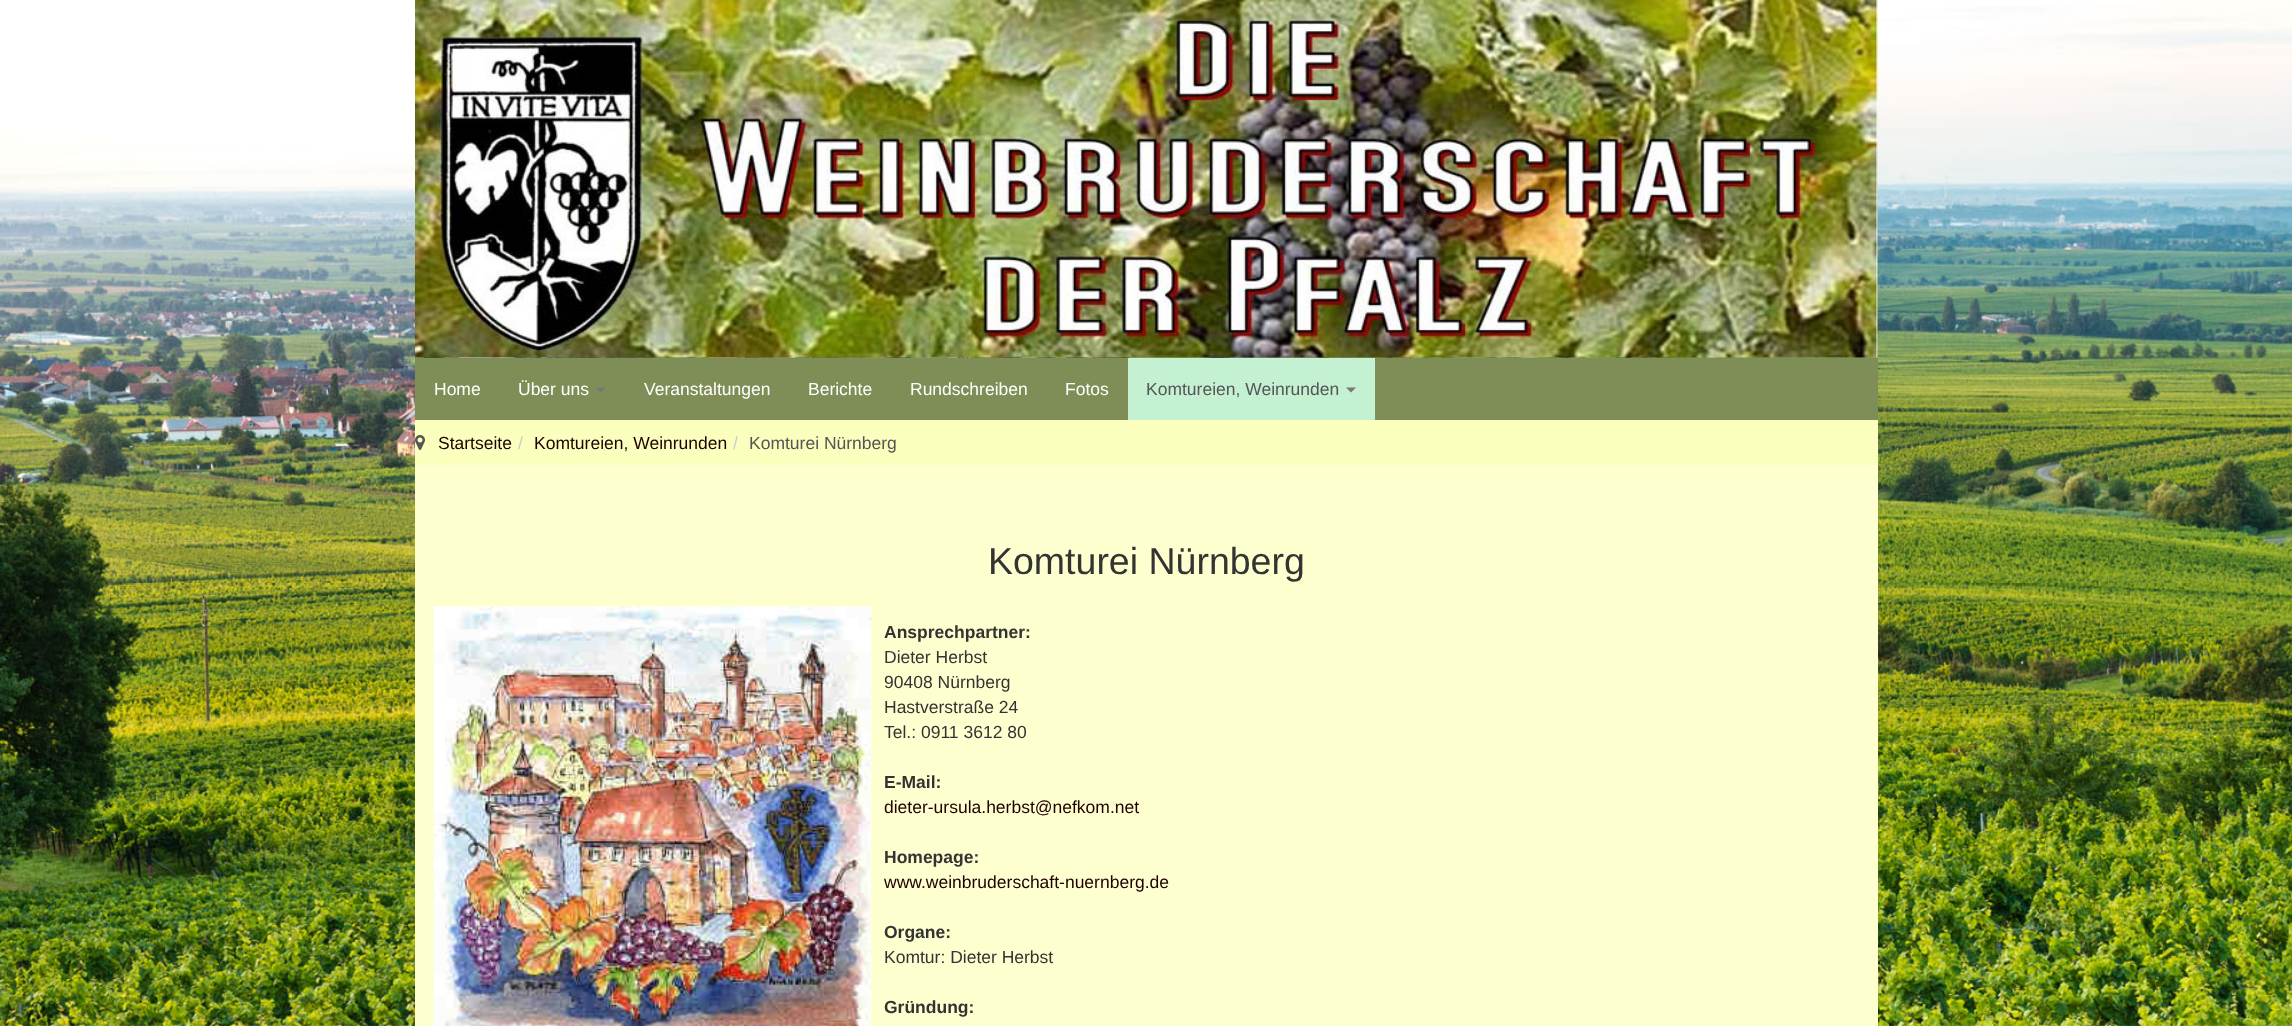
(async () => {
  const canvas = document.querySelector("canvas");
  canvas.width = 2292;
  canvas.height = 1026;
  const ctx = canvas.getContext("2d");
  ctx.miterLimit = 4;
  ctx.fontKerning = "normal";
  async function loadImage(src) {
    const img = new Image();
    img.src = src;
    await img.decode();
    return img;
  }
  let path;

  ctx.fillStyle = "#ffffff";
  ctx.fillRect(0, 0, 2292, 1026);
  ctx.drawImage(await loadImage("img/1.png"), 0, 0, 2292, 1026);
  ctx.drawImage(await loadImage("img/2.png"), 415, 0, 1463, 358);
  ctx.fillStyle = "#7f8e57";
  ctx.fillRect(415, 358, 1463, 62);
  ctx.fillStyle = "#777777";
  path = new Path2D("M596 387.5H606L601 392.5Z");
  ctx.fill(path);
  ctx.fillStyle = "#c3f1d2";
  ctx.fillRect(1128, 358, 247, 62);
  ctx.fillStyle = "#777777";
  path = new Path2D("M1346 387.5H1356L1351 392.5Z");
  ctx.fill(path);
  ctx.fillStyle = "#faffbd";
  ctx.fillRect(415, 420, 1463, 45);
  ctx.drawImage(await loadImage("img/3.png"), 415, 435, 10, 15);
  ctx.fillStyle = "#feffcf";
  ctx.fillRect(415, 465, 1463, 561);
  ctx.drawImage(await loadImage("img/4.png"), 433, 606, 439, 420);
  ctx.font = "17.5px Liberation Sans";
  ctx.fillStyle = "#ffffff";
  for (const [text, x, y] of [
    ["Home", 434, 395],
    ["Über uns", 518, 395],
    ["Veranstaltungen", 644, 395],
    ["Berichte", 808, 395],
    ["Rundschreiben", 910, 395],
    ["Fotos", 1065, 395],
  ]) {
    ctx.fillText(text, x, y);
  }
  ctx.fillStyle = "#555555";
  ctx.fillText("Komtureien, Weinrunden", 1146, 395);
  ctx.fillStyle = "#1f0101";
  ctx.fillText("Startseite", 438, 449);
  ctx.fillStyle = "#cccccc";
  ctx.fillText("/", 518, 449);
  ctx.fillStyle = "#1f0101";
  ctx.fillText("Komtureien, Weinrunden", 534, 449);
  ctx.fillStyle = "#cccccc";
  ctx.fillText("/", 733, 449);
  ctx.fillStyle = "#555555";
  ctx.fillText("Komturei Nürnberg", 749, 449);
  ctx.font = "37.5px Liberation Sans";
  ctx.fillStyle = "#333333";
  ctx.fillText("Komturei Nürnberg", 988, 574);
  ctx.font = "bold 17.5px Liberation Sans";
  ctx.fillText("Ansprechpartner:", 884, 638);
  ctx.font = "17.5px Liberation Sans";
  for (const [text, x, y] of [
    ["Dieter Herbst", 884, 663],
    ["90408 Nürnberg", 884, 688],
    ["Hastverstraße 24", 884, 713],
    ["Tel.: 0911 3612 80", 884, 738],
  ]) {
    ctx.fillText(text, x, y);
  }
  ctx.font = "bold 17.5px Liberation Sans";
  ctx.fillText("E-Mail:", 884, 788);
  ctx.font = "17.5px Liberation Sans";
  ctx.fillStyle = "#1f0101";
  ctx.fillText("dieter-ursula.herbst@nefkom.net", 884, 813);
  ctx.font = "bold 17.5px Liberation Sans";
  ctx.fillStyle = "#333333";
  ctx.fillText("Homepage:", 884, 863);
  ctx.font = "17.5px Liberation Sans";
  ctx.fillStyle = "#1f0101";
  ctx.fillText("www.weinbruderschaft-nuernberg.de", 884, 888);
  ctx.font = "bold 17.5px Liberation Sans";
  ctx.fillStyle = "#333333";
  ctx.fillText("Organe:", 884, 938);
  ctx.font = "17.5px Liberation Sans";
  ctx.fillText("Komtur: Dieter Herbst", 884, 963);
  ctx.font = "bold 17.5px Liberation Sans";
  ctx.fillText("Gründung:", 884, 1013);
})();
